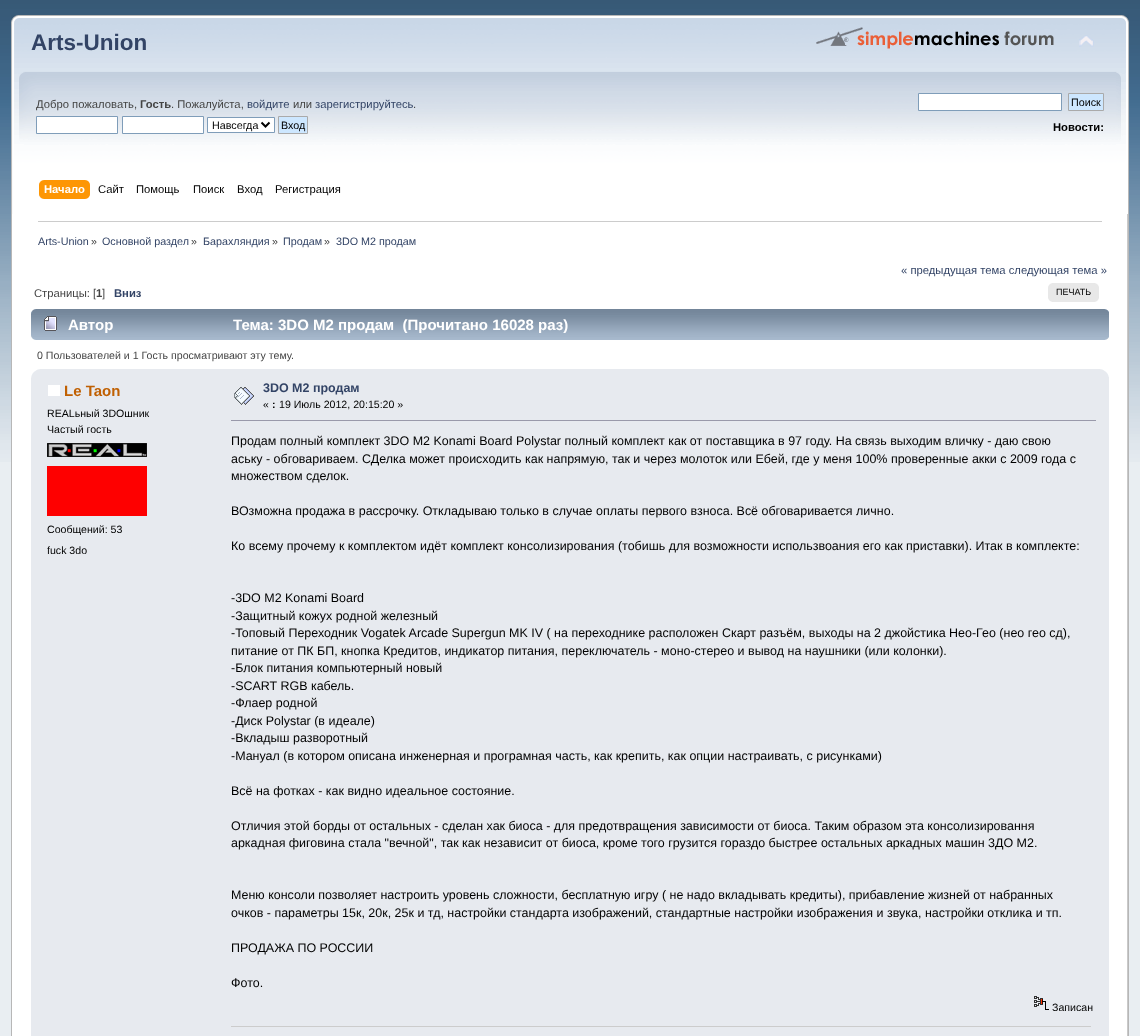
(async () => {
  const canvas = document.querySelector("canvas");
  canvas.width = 1140;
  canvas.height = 1036;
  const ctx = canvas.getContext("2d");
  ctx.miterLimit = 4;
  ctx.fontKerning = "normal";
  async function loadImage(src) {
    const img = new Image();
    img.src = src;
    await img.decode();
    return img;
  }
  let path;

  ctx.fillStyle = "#e9eef2";
  ctx.fillRect(0, 0, 1140, 1036);
  ctx.drawImage(await loadImage("img/1.png"), 0, 0, 1140, 462);
  ctx.drawImage(await loadImage("img/2.png"), 11, 15, 1105, 199);
  ctx.drawImage(await loadImage("img/3.png"), 1116, 15, 13, 199);
  ctx.drawImage(await loadImage("img/4.png"), 816, 27, 238, 22);
  ctx.drawImage(await loadImage("img/5.png"), 1079, 35, 15, 12);
  ctx.fillStyle = "#ffffff";
  ctx.beginPath();
  ctx.rect(36.5, 116.5, 81, 17);
  ctx.fill();
  ctx.strokeStyle = "#7f9db9";
  ctx.stroke();
  ctx.beginPath();
  ctx.rect(122.5, 116.5, 81, 17);
  ctx.fill();
  ctx.stroke();
  ctx.beginPath();
  ctx.rect(207.5, 117.5, 67, 15);
  ctx.fill();
  ctx.stroke();
  path = new Path2D("M261.5 122.5L265.5 126.5L269.5 122.5");
  ctx.strokeStyle = "#000000";
  ctx.lineWidth = 2;
  ctx.stroke(path);
  ctx.fillStyle = "#cde7ff";
  ctx.beginPath();
  ctx.rect(278.5, 116.5, 29, 17);
  ctx.fill();
  ctx.strokeStyle = "#aaaaaa";
  ctx.lineWidth = 1;
  ctx.stroke();
  ctx.fillStyle = "#ffffff";
  ctx.beginPath();
  ctx.rect(918.5, 93.5, 143, 17);
  ctx.fill();
  ctx.strokeStyle = "#7f9db9";
  ctx.stroke();
  ctx.fillStyle = "#cde7ff";
  ctx.beginPath();
  ctx.rect(1068.5, 93.5, 35, 17);
  ctx.fill();
  ctx.strokeStyle = "#aaaaaa";
  ctx.stroke();
  ctx.drawImage(await loadImage("img/6.png"), 44, 180, 46, 19);
  ctx.drawImage(await loadImage("img/7.png"), 39, 180, 5, 19);
  ctx.fillStyle = "#ffffff";
  ctx.fillRect(12, 214, 1115, 822);
  ctx.fillStyle = "#b7b7b7";
  ctx.fillRect(11, 214, 1, 822);
  ctx.drawImage(await loadImage("img/8.png"), 1127, 214, 2, 822);
  ctx.fillStyle = "#cccccc";
  ctx.fillRect(38, 221, 1064, 1);
  ctx.fillStyle = "#e8e8e8";
  ctx.fillRect(1052, 283, 43, 19);
  ctx.drawImage(await loadImage("img/9.png"), 1048, 283, 4, 19);
  ctx.drawImage(await loadImage("img/10.png"), 1095, 283, 4, 19);
  ctx.drawImage(await loadImage("img/11.png"), 31, 309, 1073, 31);
  ctx.drawImage(await loadImage("img/12.png"), 1104, 309, 5, 31);
  ctx.drawImage(await loadImage("img/13.png"), 44, 316, 13, 15);
  ctx.fillStyle = "#e7eaef";
  ctx.fillRect(31, 369, 1078, 667);
  ctx.drawImage(await loadImage("img/14.png"), 31, 369, 9, 9);
  ctx.drawImage(await loadImage("img/15.png"), 1100, 369, 9, 8);
  ctx.fillStyle = "#ffffff";
  ctx.fillRect(48, 385, 12, 11);
  ctx.drawImage(await loadImage("img/16.png"), 47, 443, 100, 14);
  ctx.fillStyle = "#fe0000";
  ctx.fillRect(47, 466, 100, 50);
  ctx.drawImage(await loadImage("img/17.png"), 234, 387, 20, 18);
  ctx.fillStyle = "#9999aa";
  ctx.fillRect(231, 420, 865, 1);
  ctx.drawImage(await loadImage("img/18.png"), 1034, 996, 15, 14);
  ctx.fillStyle = "#cccccc";
  ctx.fillRect(231, 1026, 860, 1);
  ctx.font = "bold 22.5px Liberation Sans";
  ctx.fillStyle = "#334466";
  ctx.fillText("Arts-Union", 31, 50);
  ctx.font = "11.25px Liberation Sans";
  ctx.fillStyle = "#444444";
  ctx.fillText("Добро пожаловать,", 36, 108);
  ctx.font = "bold 11.25px Liberation Sans";
  ctx.fillText("Гость", 140, 108);
  ctx.font = "11.25px Liberation Sans";
  ctx.fillText(". Пожалуйста,", 171, 108);
  ctx.fillStyle = "#334466";
  ctx.fillText("войдите", 247, 108);
  ctx.fillStyle = "#444444";
  ctx.fillText("или", 293, 108);
  ctx.fillStyle = "#334466";
  ctx.fillText("зарегистрируйтесь", 315, 108);
  ctx.fillStyle = "#444444";
  ctx.fillText(".", 413, 108);
  ctx.font = "10.75px Liberation Sans";
  ctx.fillStyle = "#000000";
  for (const [text, x, y] of [
    ["Навсегда", 212, 129],
    ["Вход", 281, 129],
    ["Поиск", 1071, 106],
  ]) {
    ctx.fillText(text, x, y);
  }
  ctx.font = "bold 11.25px Liberation Sans";
  ctx.fillText("Новости:", 1053, 131);
  ctx.fillStyle = "#ffffff";
  ctx.fillText("Начало", 44, 193);
  ctx.font = "11.25px Liberation Sans";
  ctx.fillStyle = "#000000";
  for (const [text, x, y] of [
    ["Сайт", 98, 193],
    ["Помощь", 136, 193],
    ["Поиск", 193, 193],
    ["Вход", 237, 193],
    ["Регистрация", 275, 193],
  ]) {
    ctx.fillText(text, x, y);
  }
  ctx.font = "10.75px Liberation Sans";
  ctx.fillStyle = "#334466";
  ctx.fillText("Arts-Union", 38, 245);
  ctx.fillStyle = "#444444";
  ctx.fillText("»", 91, 245);
  ctx.fillStyle = "#334466";
  ctx.fillText("Основной раздел", 102, 245);
  ctx.fillStyle = "#444444";
  ctx.fillText("»", 191, 245);
  ctx.fillStyle = "#334466";
  ctx.fillText("Барахляндия", 203, 245);
  ctx.fillStyle = "#444444";
  ctx.fillText("»", 272, 245);
  ctx.fillStyle = "#334466";
  ctx.fillText("Продам", 283, 245);
  ctx.fillStyle = "#444444";
  ctx.fillText("»", 324, 245);
  ctx.fillStyle = "#334466";
  ctx.fillText("3DO M2 продам", 336, 245);
  ctx.font = "11.25px Liberation Sans";
  ctx.fillText("« предыдущая тема следующая тема »", 901, 274);
  ctx.fillStyle = "#444444";
  ctx.fillText("Страницы: [", 34, 297);
  ctx.font = "bold 11.25px Liberation Sans";
  ctx.fillText("1", 96, 297);
  ctx.font = "11.25px Liberation Sans";
  ctx.fillText("]", 102, 297);
  ctx.font = "bold 11.25px Liberation Sans";
  ctx.fillStyle = "#334466";
  ctx.fillText("Вниз", 114, 297);
  ctx.font = "9px Liberation Sans";
  ctx.fillStyle = "#000000";
  ctx.fillText("ПЕЧАТЬ", 1056, 295);
  ctx.font = "bold 15px Liberation Sans";
  ctx.fillStyle = "#ffffff";
  ctx.fillText("Автор", 68, 330);
  ctx.fillText("Тема: 3DO M2 продам  (Прочитано 16028 раз)", 233, 330);
  ctx.font = "10.6px Liberation Sans";
  ctx.fillStyle = "#444444";
  ctx.fillText("0 Пользователей и 1 Гость просматривают эту тему.", 37, 359);
  ctx.font = "bold 15px Liberation Sans";
  ctx.fillStyle = "#c06002";
  ctx.fillText("Le Taon", 64, 396);
  ctx.font = "10.6px Liberation Sans";
  ctx.fillStyle = "#000000";
  for (const [text, x, y] of [
    ["REALьный 3DOшник", 47, 417],
    ["Частый гость", 47, 433],
    ["Сообщений: 53", 47, 533],
    ["fuck 3do", 47, 554],
  ]) {
    ctx.fillText(text, x, y);
  }
  ctx.font = "bold 12.48px Liberation Sans";
  ctx.fillStyle = "#334466";
  ctx.fillText("3DO M2 продам", 263, 392);
  ctx.font = "10.6px Liberation Sans";
  ctx.fillStyle = "#000000";
  ctx.fillText("«", 263, 408);
  ctx.font = "bold 10.6px Liberation Sans";
  ctx.fillText(":", 272, 408);
  ctx.font = "10.6px Liberation Sans";
  ctx.fillText("19 Июль 2012, 20:15:20 »", 279, 408);
  ctx.font = "12.48px Liberation Sans";
  for (const [text, x, y] of [
    ["Продам полный комплект 3DO M2 Konami Board Polystar полный комплект как от поставщика в 97 году. На связь выходим вличку - даю свою", 231, 445],
    ["аську - обговариваем. СДелка может происходить как напрямую, так и через молоток или Ебей, где у меня 100% проверенные акки с 2009 года с", 231, 463],
    ["множеством сделок.", 231, 480],
    ["ВОзможна продажа в рассрочку. Откладываю только в случае оплаты первого взноса. Всё обговаривается лично.", 231, 515],
    ["Ко всему прочему к комплектом идёт комплект консолизирования (тобишь для возможности использвоания его как приставки). Итак в комплекте:", 231, 550],
    ["-3DO M2 Konami Board", 231, 602],
    ["-Защитный кожух родной железный", 231, 620],
    ["-Топовый Переходник Vogatek Arcade Supergun MK IV ( на переходнике расположен Скарт разъём, выходы на 2 джойстика Нео-Гео (нео гео сд),", 231, 637],
    ["питание от ПК БП, кнопка Кредитов, индикатор питания, переключатель - моно-стерео и вывод на наушники (или колонки).", 231, 655],
    ["-Блок питания компьютерный новый", 231, 672],
    ["-SCART RGB кабель.", 231, 690],
    ["-Флаер родной", 231, 707],
    ["-Диск Polystar (в идеале)", 231, 725],
    ["-Вкладыш разворотный", 231, 742],
    ["-Мануал (в котором описана инженерная и програмная часть, как крепить, как опции настраивать, с рисунками)", 231, 760],
    ["Всё на фотках - как видно идеальное состояние.", 231, 795],
    ["Отличия этой борды от остальных - сделан хак биоса - для предотвращения зависимости от биоса. Таким образом эта консолизировання", 231, 830],
    ["аркадная фиговина стала \"вечной\", так как независит от биоса, кроме того грузится гораздо быстрее остальных аркадных машин 3ДО М2.", 231, 847],
    ["Меню консоли позволяет настроить уровень сложности, бесплатную игру ( не надо вкладывать кредиты), прибавление жизней от набранных", 231, 899],
    ["очков - параметры 15к, 20к, 25к и тд, настройки стандарта изображений, стандартные настройки изображения и звука, настройки отклика и тп.", 231, 917],
    ["ПРОДАЖА ПО РОССИИ", 231, 952],
    ["Фото.", 231, 987],
  ]) {
    ctx.fillText(text, x, y);
  }
  ctx.font = "10.6px Liberation Sans";
  ctx.fillText("Записан", 1052, 1011);
})();
